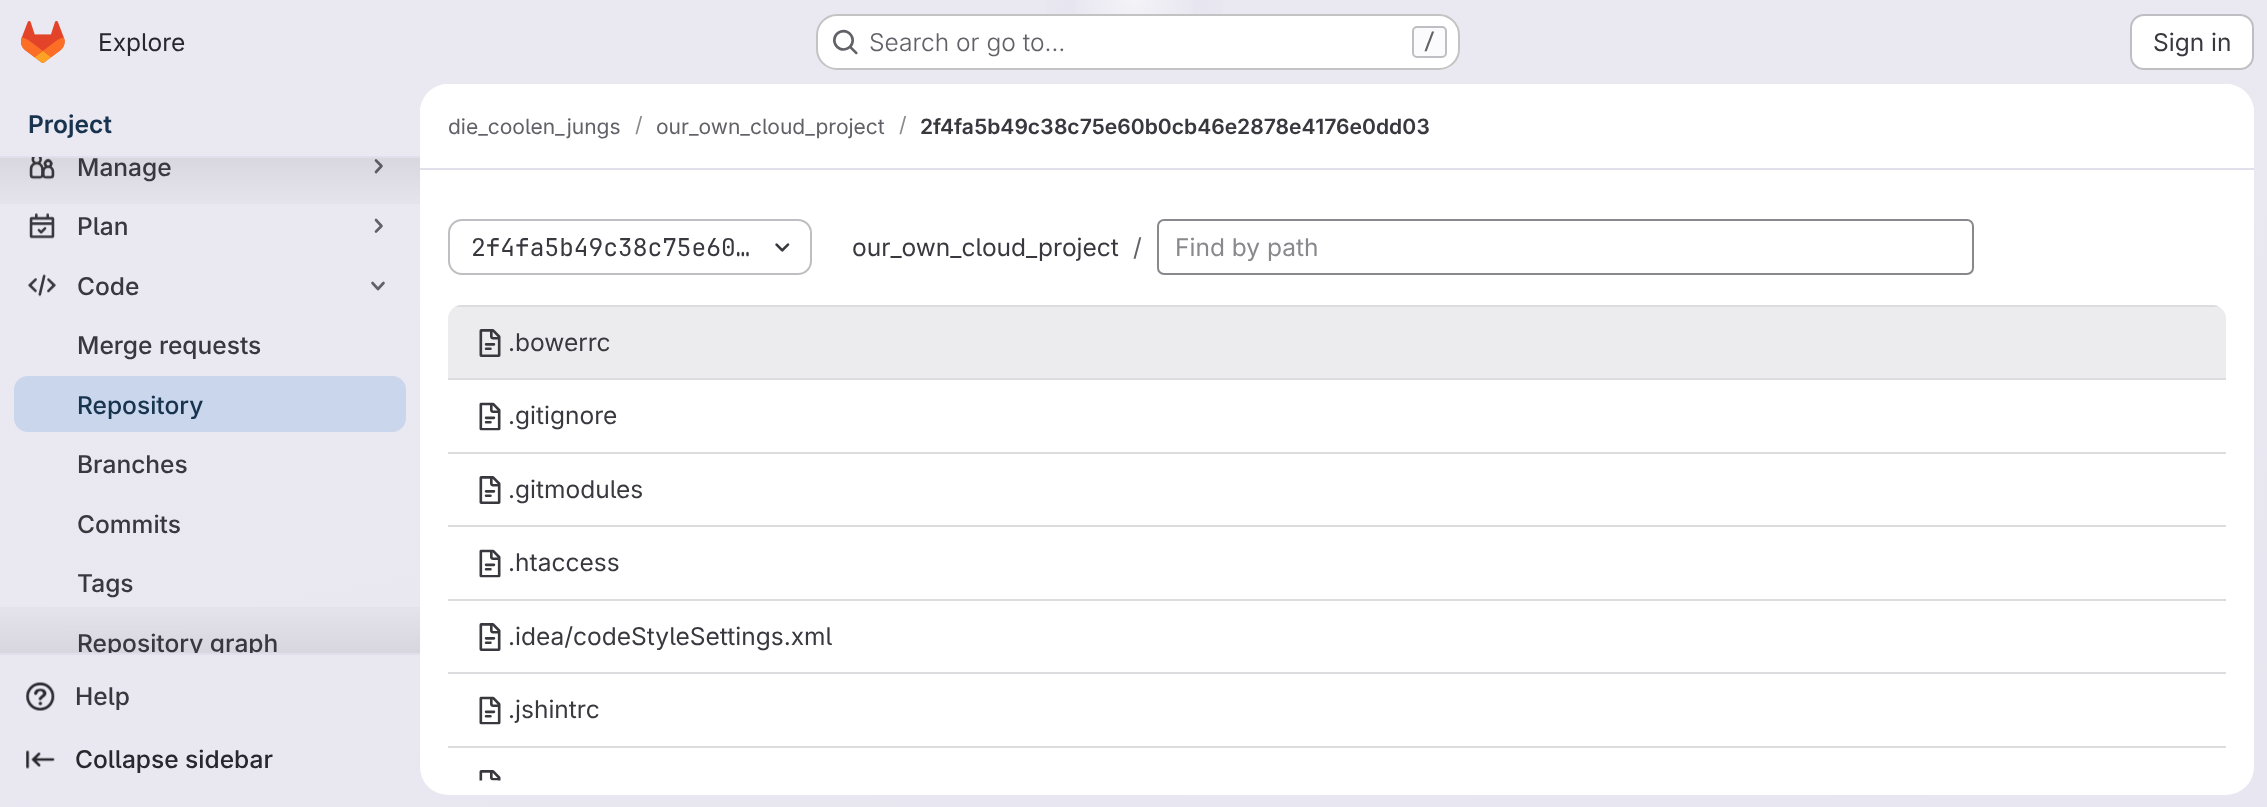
(async () => {
  const canvas = document.querySelector("canvas");
  canvas.width = 2267;
  canvas.height = 807;
  const ctx = canvas.getContext("2d");
  ctx.miterLimit = 4;
  ctx.fontKerning = "normal";
  async function loadImage(src) {
    const img = new Image();
    img.src = src;
    await img.decode();
    return img;
  }
  let gradient, path;

  ctx.fillStyle = "#ffffff";
  ctx.fillRect(0, 0, 2267, 807);
  gradient = ctx.createLinearGradient(1237, 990, 1031, -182);
  gradient.addColorStop(0, "#e8e6f0");
  gradient.addColorStop(0.7, "#eae9f2");
  ctx.fillStyle = gradient;
  ctx.fillRect(0, 0, 2267, 807);
  gradient = ctx.createRadialGradient(1134, 0, 0, 1134, 0, 1134);
  gradient.addColorStop(0, "#e4e2ed");
  gradient.addColorStop(0.11, "rgba(228, 226, 237, 0)");
  ctx.fillStyle = gradient;
  ctx.beginPath();
  ctx.rect(1045, 0, 178, 64);
  ctx.save();
  ctx.clip();
  ctx.scale(1, 809 / 1134);
  ctx.fillRect(0, 0, 2267, 1132);
  ctx.restore();
  gradient = ctx.createRadialGradient(1134, 0, 0, 1134, 0, 1134);
  gradient.addColorStop(0, "#e4e2ec");
  gradient.addColorStop(0.08, "rgba(228, 226, 236, 0)");
  ctx.fillStyle = gradient;
  ctx.beginPath();
  ctx.rect(1120, 4, 28, 10);
  ctx.save();
  ctx.clip();
  ctx.scale(1, 809 / 1134);
  ctx.fillRect(0, 0, 2267, 1132);
  ctx.restore();
  gradient = ctx.createRadialGradient(1134, 0, 0, 1134, 0, 1393);
  gradient.addColorStop(0, "rgba(255, 255, 255, 0.6)");
  gradient.addColorStop(0.05, "rgba(255, 255, 255, 0)");
  ctx.fillStyle = gradient;
  ctx.fillRect(1075, 0, 118, 14);
  ctx.drawImage(await loadImage("img/1.png"), 21, 21, 44, 42);
  ctx.fillStyle = "#ffffff";
  ctx.beginPath();
  ctx.roundRect(816, 14, 644, 56, 21);
  ctx.fill();
  ctx.beginPath();
  ctx.roundRect(817, 15, 642, 54, 20);
  ctx.strokeStyle = "rgba(5, 5, 6, 0.24)";
  ctx.lineWidth = 2;
  ctx.stroke();
  ctx.drawImage(await loadImage("img/2.png"), 833, 29, 25, 26);
  ctx.fillStyle = "#fbfafd";
  ctx.beginPath();
  ctx.roundRect(1413, 27, 33, 30, 4);
  ctx.fill();
  ctx.strokeStyle = "#bfbfc3";
  ctx.stroke();
  ctx.fillStyle = "#ffffff";
  ctx.beginPath();
  ctx.roundRect(2131, 15, 122, 54, 13);
  ctx.fill();
  ctx.stroke();
  ctx.fillStyle = "#e1dfec";
  ctx.fillRect(0, 156, 420, 2);
  ctx.fillRect(0, 653, 420, 2);
  ctx.drawImage(await loadImage("img/3.png"), 29, 157, 26, 23);
  path = new Path2D("M376 160.5L381.5 166L376 172");
  ctx.strokeStyle = "#626168";
  ctx.lineWidth = 2.6;
  ctx.lineCap = "round";
  ctx.lineJoin = "round";
  ctx.stroke(path);
  gradient = ctx.createLinearGradient(210, 157, 210, 221);
  gradient.addColorStop(0, "rgba(5, 5, 6, 0.08)");
  gradient.addColorStop(1, "rgba(5, 5, 6, 0)");
  ctx.fillStyle = gradient;
  ctx.fillRect(0, 158, 420, 46);
  ctx.drawImage(await loadImage("img/4.png"), 29, 213, 26, 26);
  path = new Path2D("M376 220L381.5 226L376 231.5");
  ctx.stroke(path);
  ctx.drawImage(await loadImage("img/5.png"), 28, 274, 28, 23);
  path = new Path2D("M383.5 283L378 289L372.5 283");
  ctx.stroke(path);
  ctx.fillStyle = "#c9d6eb";
  ctx.beginPath();
  ctx.roundRect(14, 376, 392, 56, 14);
  ctx.fill();
  gradient = ctx.createLinearGradient(210, 590, 210, 653);
  gradient.addColorStop(0, "rgba(5, 5, 6, 0)");
  gradient.addColorStop(1, "rgba(5, 5, 6, 0.08)");
  ctx.fillStyle = gradient;
  ctx.fillRect(0, 607, 420, 46);
  ctx.drawImage(await loadImage("img/6.png"), 26, 682, 29, 29);
  ctx.drawImage(await loadImage("img/7.png"), 26, 750, 29, 19);
  ctx.fillStyle = "#ffffff";
  ctx.beginPath();
  ctx.roundRect(420, 84, 1834, 711, 28);
  ctx.fill();
  ctx.beginPath();
  ctx.roundRect(420, 84, 1834, 86, [28, 28, 0, 0]);
  ctx.fill();
  ctx.fillStyle = "#e1dfec";
  ctx.fillRect(420, 168, 1834, 2);
  ctx.beginPath();
  ctx.roundRect(449, 220, 362, 54, 13);
  ctx.strokeStyle = "#bfbfc3";
  ctx.lineWidth = 2;
  ctx.lineJoin = "miter";
  ctx.stroke();
  ctx.drawImage(await loadImage("img/8.png"), 775, 243, 15, 9);
  ctx.beginPath();
  ctx.roundRect(1158, 220, 815, 54, 6);
  ctx.strokeStyle = "#89888d";
  ctx.stroke();
  ctx.fillStyle = "#ececef";
  ctx.beginPath();
  ctx.roundRect(448, 305, 1778, 73, [14, 14, 0, 0]);
  ctx.fill();
  ctx.save();
  ctx.beginPath();
  ctx.roundRect(448, 305, 1778, 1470, 14);
  ctx.clip();
  ctx.fillStyle = "#dcdcde";
  ctx.fillRect(448, 305, 1778, 2);
  ctx.restore();
  ctx.drawImage(await loadImage("img/9.png"), 479, 329, 22, 28);
  ctx.fillStyle = "#dcdcde";
  ctx.fillRect(448, 378, 1778, 2);
  ctx.drawImage(await loadImage("img/10.png"), 479, 402, 22, 29);
  ctx.fillRect(448, 452, 1778, 2);
  ctx.drawImage(await loadImage("img/11.png"), 479, 476, 22, 28);
  ctx.fillRect(448, 525, 1778, 2);
  ctx.drawImage(await loadImage("img/10.png"), 479, 549, 22, 29);
  ctx.fillRect(448, 599, 1778, 2);
  ctx.drawImage(await loadImage("img/12.png"), 479, 623, 22, 28);
  ctx.fillRect(448, 672, 1778, 2);
  ctx.drawImage(await loadImage("img/10.png"), 479, 696, 22, 29);
  ctx.fillRect(448, 746, 1778, 2);
  ctx.drawImage(await loadImage("img/13.png"), 479, 770, 22, 11);
  ctx.font = "24.5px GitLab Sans";
  ctx.fillStyle = "#28272d";
  ctx.fillText("Explore", 98, 51);
  ctx.font = "300 24.5px GitLab Sans";
  ctx.fillStyle = "#626168";
  ctx.fillText("Search or go to…", 869, 51);
  ctx.font = "500 21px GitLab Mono";
  ctx.fillText("/", 1423, 49);
  ctx.font = "24.5px GitLab Sans";
  ctx.fillStyle = "#3a383f";
  ctx.fillText("Sign in", 2153, 51);
  ctx.font = "600 24.5px GitLab Sans";
  ctx.fillStyle = "#18334e";
  ctx.fillText("Project", 28, 133);
  ctx.font = "500 24.5px GitLab Sans";
  ctx.fillStyle = "#3a383f";
  for (const [text, x, y] of [
    ["Manage", 77, 176],
    ["Plan", 77, 235],
    ["Code", 77, 295],
    ["Merge requests", 77, 354],
  ]) {
    ctx.fillText(text, x, y);
  }
  ctx.fillStyle = "#18334e";
  ctx.fillText("Repository", 77, 414);
  ctx.fillStyle = "#3a383f";
  for (const [text, x, y] of [
    ["Branches", 77, 473],
    ["Commits", 77, 533],
    ["Tags", 77, 592],
  ]) {
    ctx.fillText(text, x, y);
  }
  ctx.save();
  ctx.beginPath();
  ctx.rect(0, 158, 420, 495);
  ctx.clip();
  ctx.fillText("Repository graph", 77, 652);
  ctx.restore();
  ctx.fillText("Help", 75, 705);
  ctx.fillStyle = "#28272d";
  ctx.fillText("Collapse sidebar", 75, 768);
  ctx.font = "21px GitLab Sans";
  ctx.fillStyle = "#626168";
  ctx.fillText("die_coolen_jungs", 448, 134);
  ctx.fillStyle = "#89888d";
  ctx.fillText("/", 635, 132);
  ctx.fillStyle = "#626168";
  ctx.fillText("our_own_cloud_project", 656, 134);
  ctx.fillStyle = "#89888d";
  ctx.fillText("/", 899, 132);
  ctx.font = "600 21px GitLab Sans";
  ctx.fillStyle = "#3a383f";
  ctx.fillText("2f4fa5b49c38c75e60b0cb46e2878e4176e0dd03", 920, 134);
  ctx.font = "24.5px GitLab Mono";
  ctx.fillText("2f4fa5b49c38c75e60…", 471, 256);
  ctx.font = "24.5px GitLab Sans";
  ctx.fillText("our_own_cloud_project", 852, 256);
  ctx.fillStyle = "#626168";
  ctx.fillText("/", 1133, 256);
  ctx.fillStyle = "#89888d";
  ctx.fillText("Find by path", 1175, 256);
  ctx.fillStyle = "#3a383f";
  for (const [text, x, y] of [
    [".bowerrc", 508, 351],
    [".gitignore", 508, 424],
    [".gitmodules", 508, 498],
    [".htaccess", 508, 571],
    [".idea/codeStyleSettings.xml", 508, 645],
    [".jshintrc", 508, 718],
  ]) {
    ctx.fillText(text, x, y);
  }
})();
